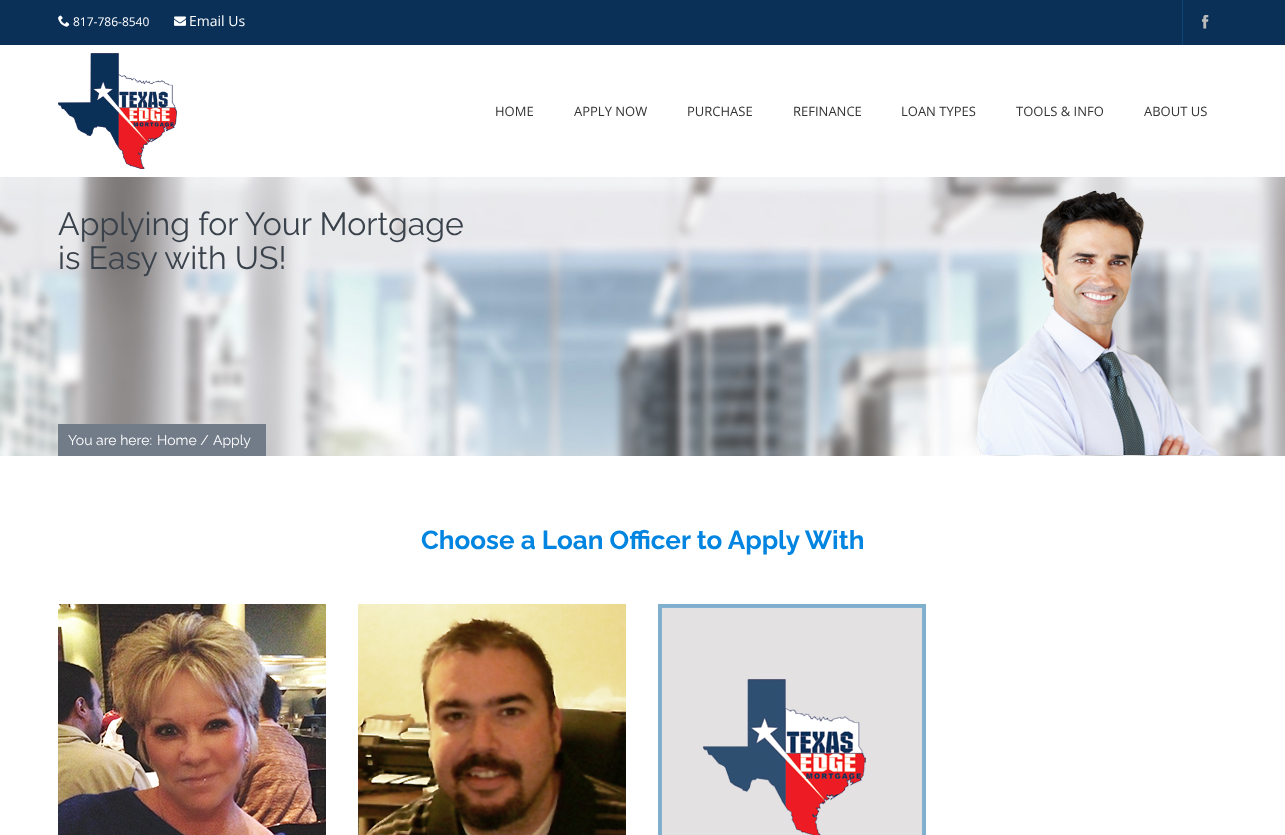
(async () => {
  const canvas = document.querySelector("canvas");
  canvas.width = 1285;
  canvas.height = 835;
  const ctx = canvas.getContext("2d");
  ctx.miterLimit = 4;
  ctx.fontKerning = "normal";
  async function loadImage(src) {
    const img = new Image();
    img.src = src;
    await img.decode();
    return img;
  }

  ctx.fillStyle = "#ffffff";
  ctx.fillRect(0, 0, 1285, 835);
  ctx.fillStyle = "#0a3058";
  ctx.fillRect(0, 0, 1285, 45);
  ctx.drawImage(await loadImage("img/1.png"), 58, 15, 12, 12);
  ctx.drawImage(await loadImage("img/2.png"), 174, 16, 12, 10);
  ctx.fillStyle = "#0e4477";
  ctx.fillRect(1182, 0, 1, 45);
  ctx.drawImage(await loadImage("img/3.png"), 58, 53, 119, 116);
  ctx.drawImage(await loadImage("img/4.png"), 0, 177, 1285, 279);
  ctx.drawImage(await loadImage("img/5.png"), 976, 190, 246, 265);
  ctx.fillStyle = "#727c89";
  ctx.fillRect(58, 424, 208, 32);
  ctx.drawImage(await loadImage("img/6.png"), 58, 604, 268, 231);
  ctx.drawImage(await loadImage("img/7.png"), 358, 604, 268, 231);
  ctx.drawImage(await loadImage("img/8.png"), 658, 604, 268, 231);
  ctx.font = "12px Open Sans";
  ctx.fillStyle = "#ffffff";
  ctx.fillText("817-786-8540", 73, 26);
  ctx.font = "14px Open Sans";
  ctx.fillText("Email Us", 189, 26);
  ctx.font = "14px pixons";
  ctx.fillStyle = "#bbbbbb";
  ctx.fillText("2", 1202, 28);
  ctx.font = "13px Open Sans";
  ctx.fillStyle = "#333333";
  for (const [text, x, y] of [
    ["HOME", 495, 116],
    ["APPLY NOW", 574, 116],
    ["PURCHASE", 687, 116],
    ["REFINANCE", 793, 116],
    ["LOAN TYPES", 901, 116],
    ["TOOLS & INFO", 1016, 116],
    ["ABOUT US", 1144, 116],
  ]) {
    ctx.fillText(text, x, y);
  }
  ctx.font = "32px Raleway";
  ctx.fillStyle = "#39414b";
  ctx.fillText("Applying for Your Mortgage", 58, 235);
  ctx.fillText("is Easy with US!", 58, 269);
  ctx.font = "14px Raleway";
  ctx.fillStyle = "#ffffff";
  for (const [text, x, y] of [
    ["You are here:", 68, 445],
    ["Home /", 157, 445],
    ["Apply", 213, 445],
  ]) {
    ctx.fillText(text, x, y);
  }
  ctx.font = "bold 26px Raleway";
  ctx.fillStyle = "#0285e0";
  ctx.fillText("Choose a Loan Officer to Apply With", 421, 549);
})();
